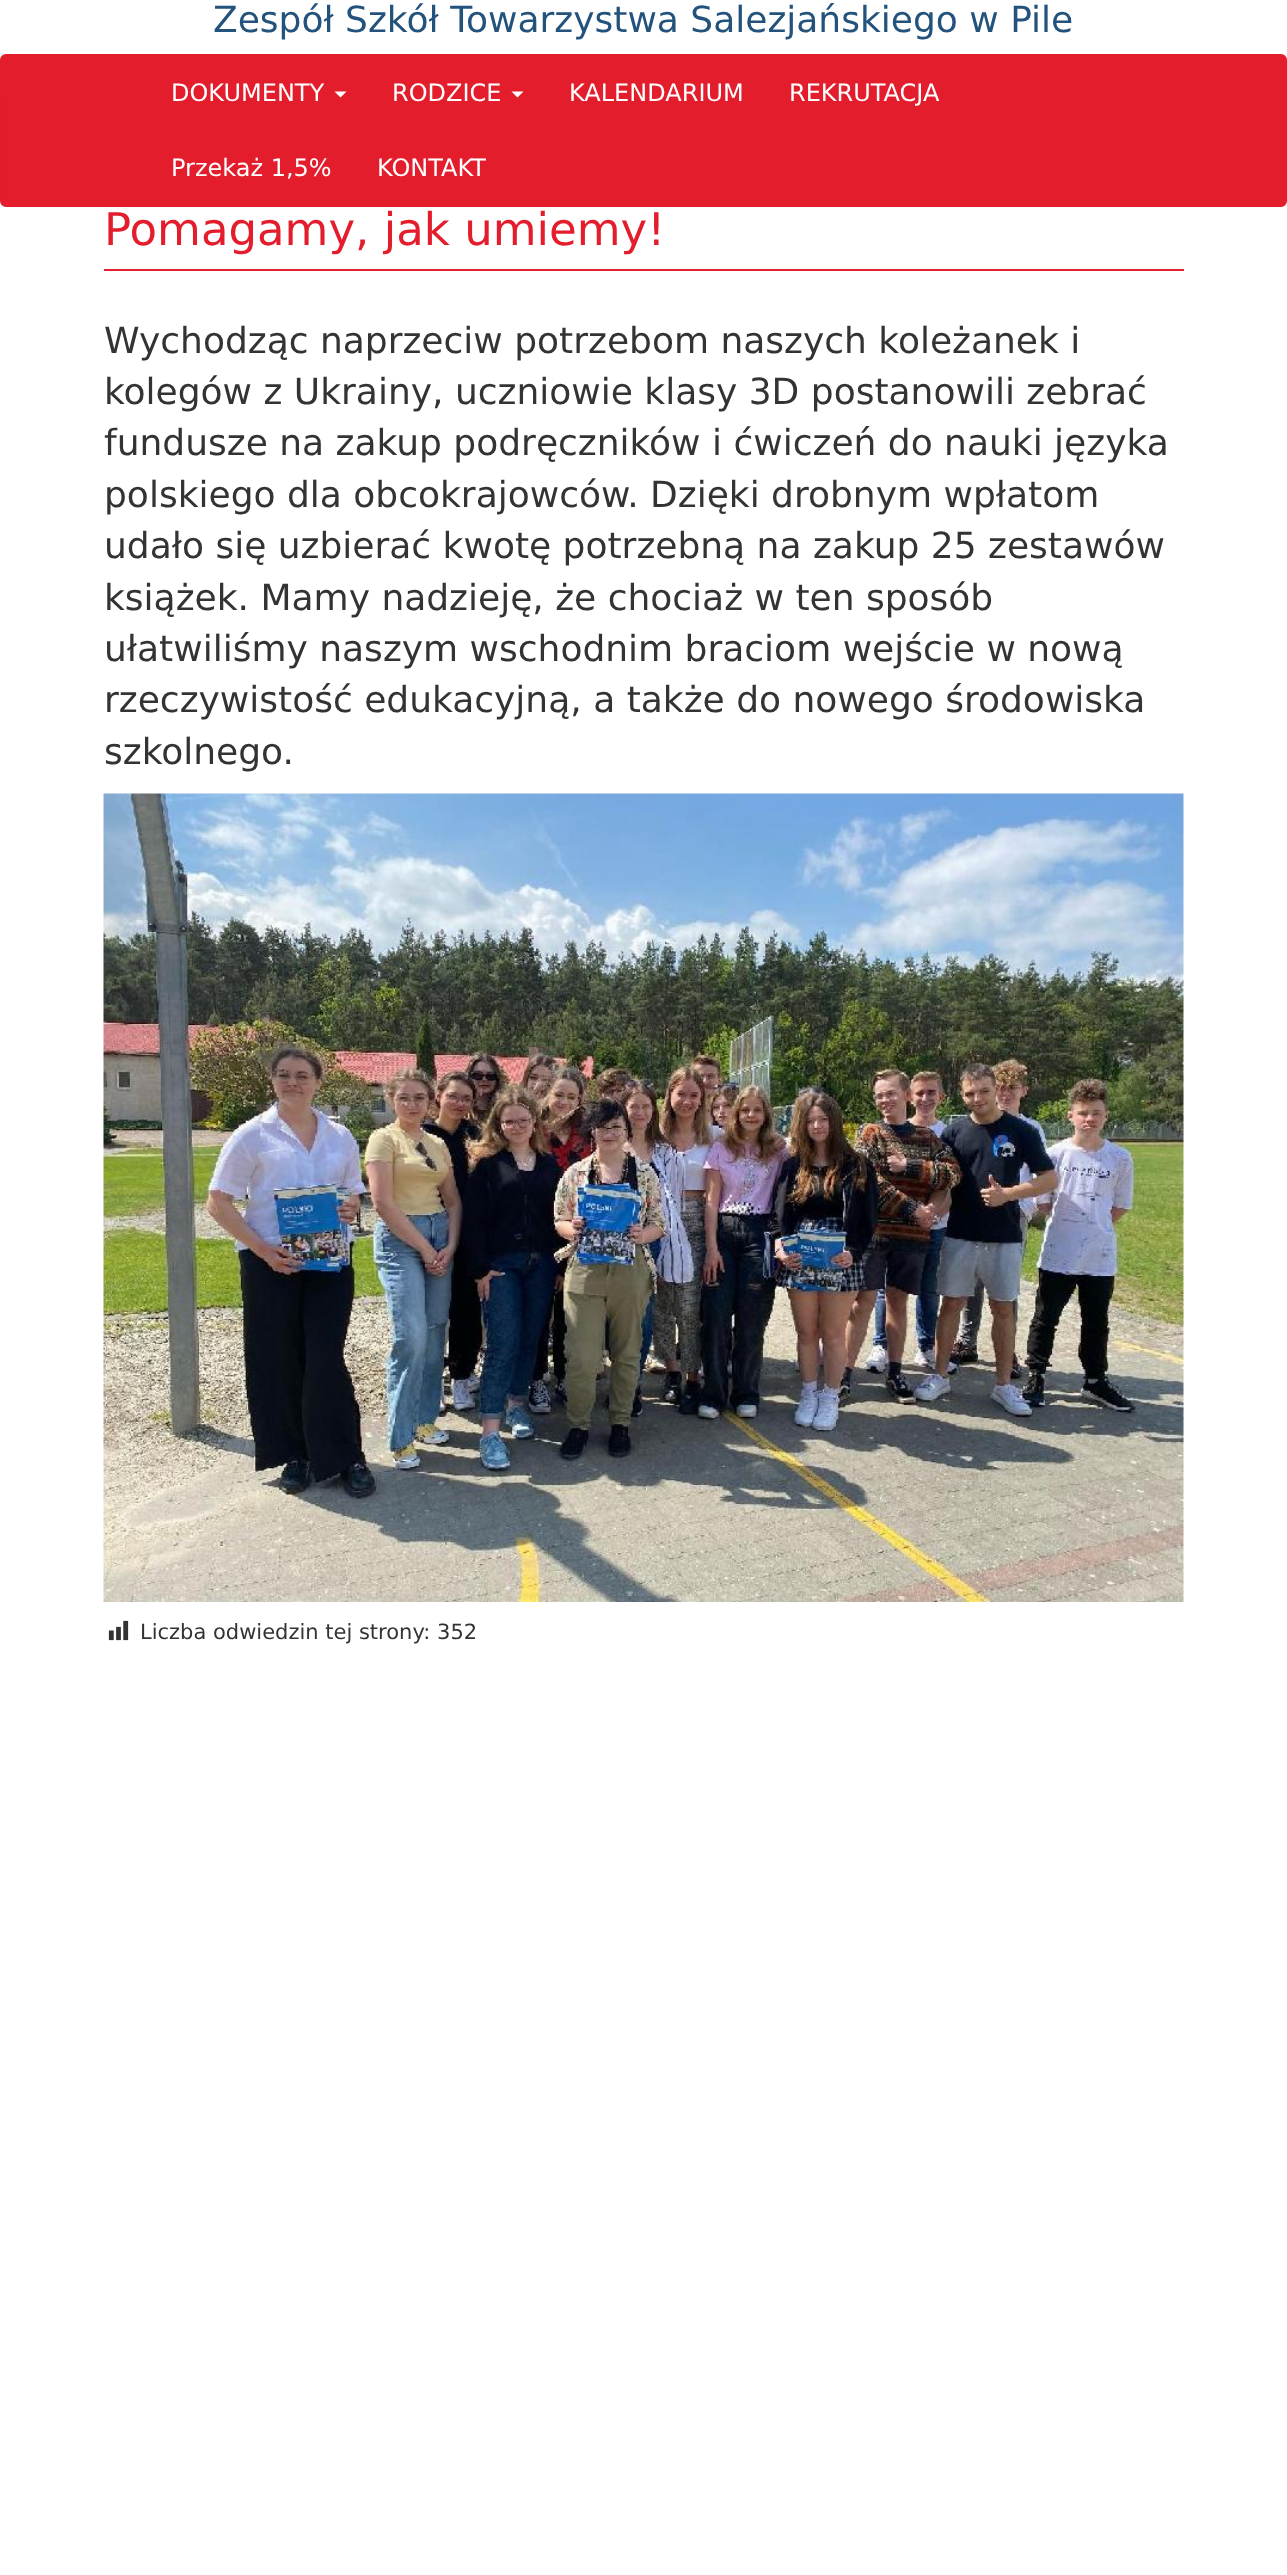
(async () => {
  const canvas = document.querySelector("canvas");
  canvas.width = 1287;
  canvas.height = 2575;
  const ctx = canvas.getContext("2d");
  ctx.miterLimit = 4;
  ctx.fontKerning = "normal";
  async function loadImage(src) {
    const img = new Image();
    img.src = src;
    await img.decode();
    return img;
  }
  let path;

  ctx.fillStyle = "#ffffff";
  ctx.fillRect(0, 0, 1287, 2575);
  ctx.fillStyle = "#e31d2c";
  ctx.beginPath();
  ctx.roundRect(1, 55, 1285, 151, 5);
  ctx.fill();
  ctx.strokeStyle = "#e31d2c";
  ctx.lineWidth = 2;
  ctx.stroke();
  ctx.fillStyle = "#ffffff";
  path = new Path2D("M334.5 91.5H346.5L340.5 97.5Z");
  ctx.fill(path);
  path = new Path2D("M511.5 91.5H523.5L517.5 97.5Z");
  ctx.fill(path);
  ctx.fillStyle = "#e31d2c";
  ctx.fillRect(104, 269, 1080, 2);
  ctx.drawImage(await loadImage("img/1.png"), 103, 793, 1081, 809);
  ctx.drawImage(await loadImage("img/2.png"), 108, 1620, 21, 21);
  ctx.font = "36px DejaVu Sans";
  ctx.fillStyle = "#23527c";
  ctx.fillText("Zespół Szkół Towarzystwa Salezjańskiego w Pile", 213, 32);
  ctx.font = "24px DejaVu Sans";
  ctx.fillStyle = "#ffffff";
  for (const [text, x, y] of [
    ["DOKUMENTY", 171, 101],
    ["RODZICE", 392, 101],
    ["KALENDARIUM", 569, 101],
    ["REKRUTACJA", 789, 101],
    ["Przekaż 1,5%", 171, 176],
    ["KONTAKT", 377, 176],
  ]) {
    ctx.fillText(text, x, y);
  }
  ctx.font = "45px DejaVu Sans";
  ctx.fillStyle = "#e31d2c";
  ctx.fillText("Pomagamy, jak umiemy!", 104, 245);
  ctx.font = "36px DejaVu Sans";
  ctx.fillStyle = "#333333";
  for (const [text, x, y] of [
    ["Wychodząc naprzeciw potrzebom naszych koleżanek i", 104, 353],
    ["kolegów z Ukrainy, uczniowie klasy 3D postanowili zebrać", 104, 404],
    ["fundusze na zakup podręczników i ćwiczeń do nauki języka", 104, 455],
    ["polskiego dla obcokrajowców. Dzięki drobnym wpłatom", 104, 507],
    ["udało się uzbierać kwotę potrzebną na zakup 25 zestawów", 104, 558],
    ["książek. Mamy nadzieję, że chociaż w ten sposób", 104, 610],
    ["ułatwiliśmy naszym wschodnim braciom wejście w nową", 104, 661],
    ["rzeczywistość edukacyjną, a także do nowego środowiska", 104, 712],
    ["szkolnego.", 104, 764],
  ]) {
    ctx.fillText(text, x, y);
  }
  ctx.font = "21px DejaVu Sans";
  ctx.fillText("Liczba odwiedzin tej strony: 352", 140, 1639);
})();
